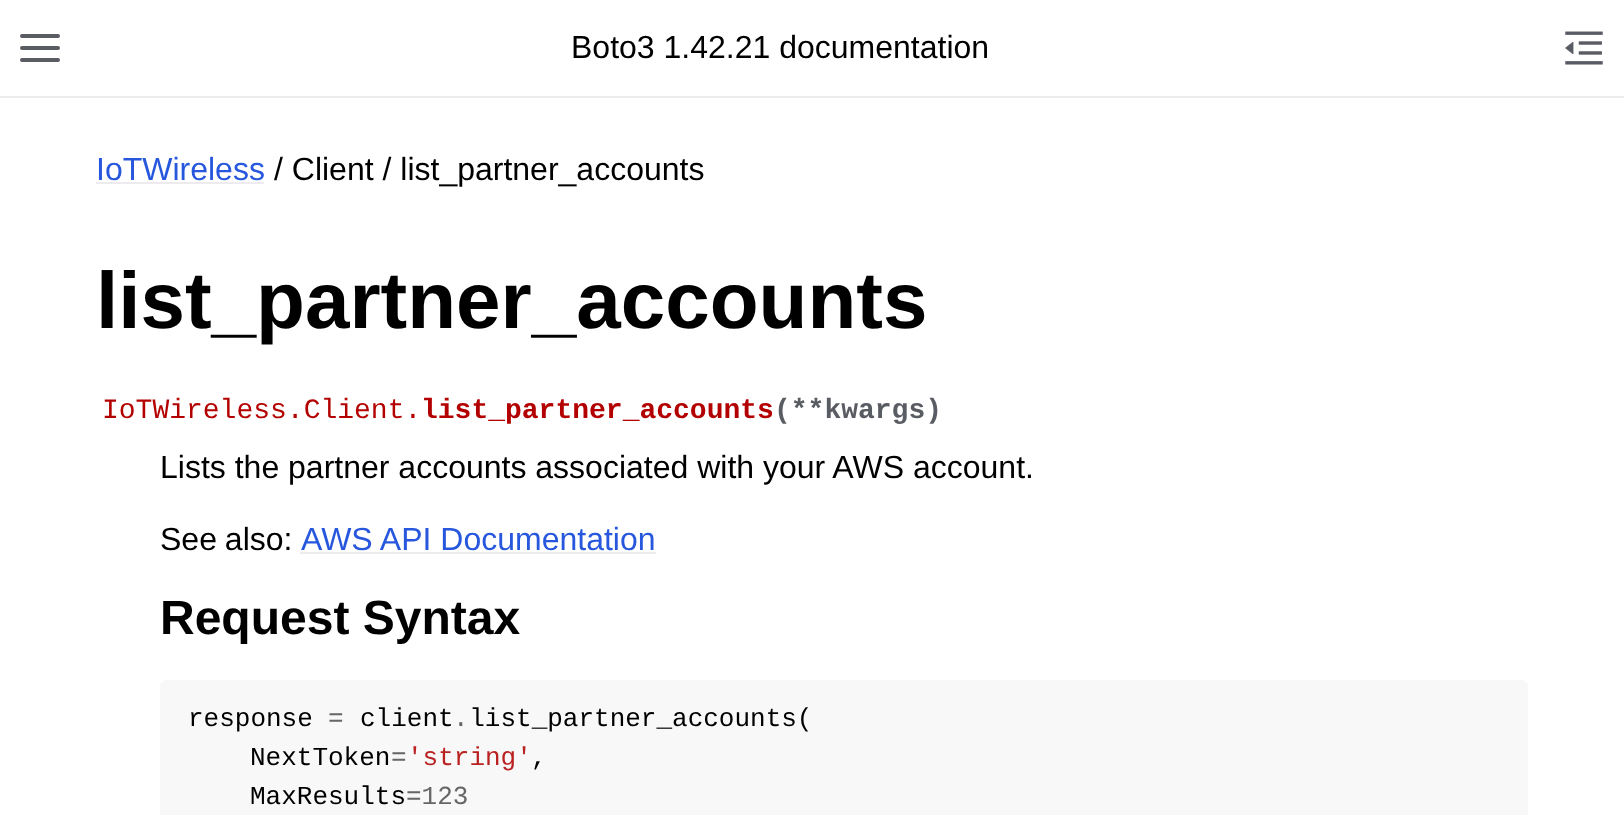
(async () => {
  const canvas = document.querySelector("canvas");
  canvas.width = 1624;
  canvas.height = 815;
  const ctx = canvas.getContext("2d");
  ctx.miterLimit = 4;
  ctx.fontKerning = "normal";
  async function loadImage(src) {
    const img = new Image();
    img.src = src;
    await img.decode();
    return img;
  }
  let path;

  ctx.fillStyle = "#ffffff";
  ctx.fillRect(0, 0, 1624, 815);
  ctx.fillStyle = "#eeebee";
  ctx.fillRect(0, 96, 1624, 2);
  path = new Path2D("M22 48H58M22 36H58M22 60H58");
  ctx.strokeStyle = "#5a5c63";
  ctx.lineWidth = 4;
  ctx.lineCap = "round";
  ctx.lineJoin = "round";
  ctx.stroke(path);
  ctx.drawImage(await loadImage("img/1.png"), 1565, 31, 38, 34);
  ctx.fillRect(96, 182, 168, 2);
  ctx.fillRect(300, 552, 356, 2);
  ctx.fillStyle = "#f8f8f8";
  ctx.beginPath();
  ctx.roundRect(160, 680, 1368, 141, 6);
  ctx.fill();
  ctx.font = "32px Liberation Sans";
  ctx.fillStyle = "#000000";
  ctx.fillText("Boto3 1.42.21 documentation", 571, 58);
  ctx.fillStyle = "#2757dd";
  ctx.fillText("IoTWireless", 96, 180);
  ctx.fillStyle = "#000000";
  ctx.fillText("/ Client / list_partner_accounts", 274, 180);
  ctx.font = "bold 80px Liberation Sans";
  ctx.fillText("list_partner_accounts", 96, 328);
  ctx.font = "28px Liberation Mono";
  ctx.fillStyle = "#b30000";
  ctx.fillText("IoTWireless.Client.", 102, 418);
  ctx.font = "bold 28px Liberation Mono";
  ctx.fillText("list_partner_accounts", 421, 418);
  ctx.fillStyle = "#5a5c63";
  ctx.fillText("(**kwargs)", 774, 418);
  ctx.font = "32px Liberation Sans";
  ctx.fillStyle = "#000000";
  ctx.fillText("Lists the partner accounts associated with your AWS account.", 160, 478);
  ctx.wordSpacing = "-1px";
  ctx.fillText("See also:", 160, 550);
  ctx.wordSpacing = "0px";
  ctx.fillStyle = "#2757dd";
  ctx.fillText("AWS API Documentation", 301, 550);
  ctx.font = "bold 48px Liberation Sans";
  ctx.fillStyle = "#000000";
  ctx.fillText("Request Syntax", 160, 634);
  ctx.font = "26px Liberation Mono";
  ctx.fillText("response", 188, 726);
  ctx.fillStyle = "#666666";
  ctx.fillText("=", 328, 726);
  ctx.fillStyle = "#000000";
  ctx.fillText("client list_partner_accounts(", 360, 726);
  ctx.fillStyle = "#666666";
  ctx.fillText(".", 453, 726);
  ctx.fillStyle = "#000000";
  ctx.fillText("NextToken", 250, 765);
  ctx.fillStyle = "#666666";
  ctx.fillText("=", 391, 765);
  ctx.fillStyle = "#ba2121";
  ctx.fillText("'string'", 407, 765);
  ctx.fillStyle = "#000000";
  ctx.fillText(",", 531, 765);
  ctx.fillText("MaxResults", 250, 804);
  ctx.fillStyle = "#666666";
  ctx.fillText("=123", 406, 804);
})();
